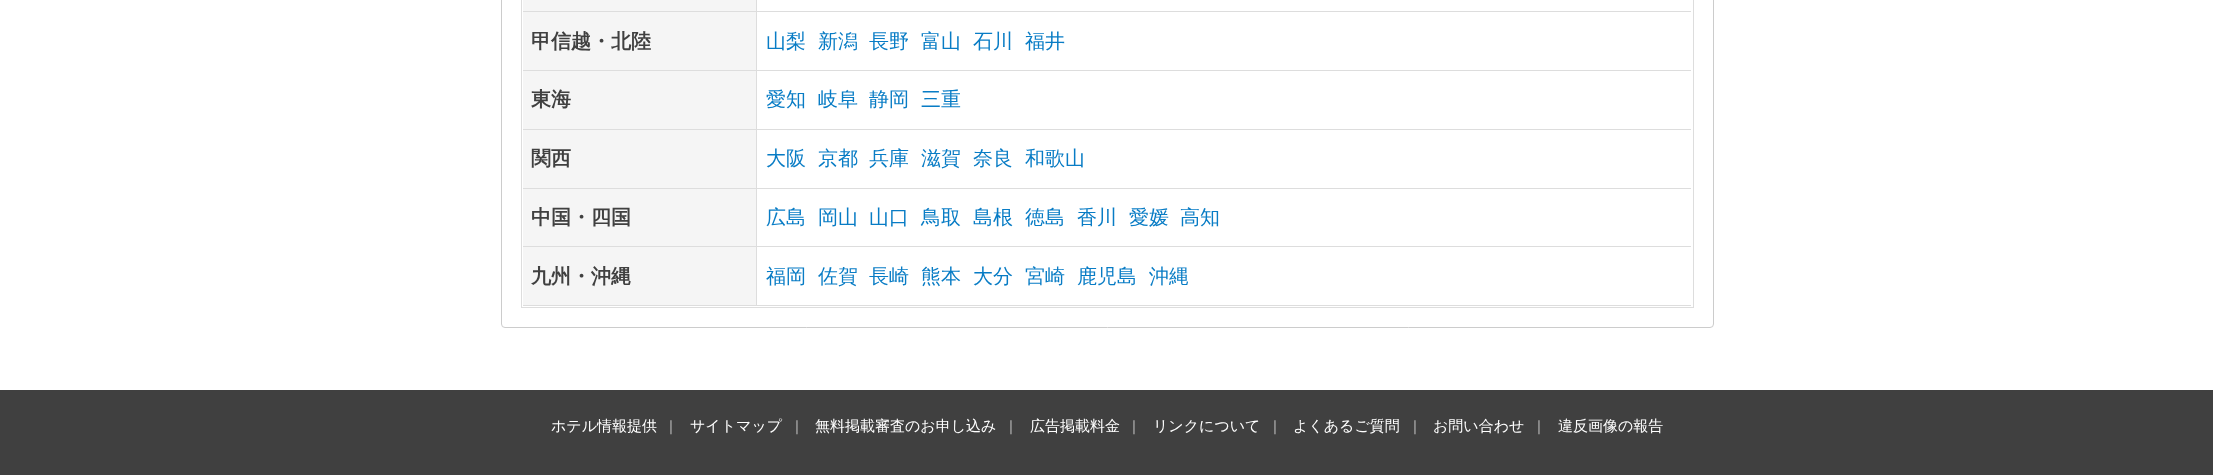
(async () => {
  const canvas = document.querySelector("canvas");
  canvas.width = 2213;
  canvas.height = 475;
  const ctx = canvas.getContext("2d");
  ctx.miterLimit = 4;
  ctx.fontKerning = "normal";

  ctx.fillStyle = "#ffffff";
  ctx.fillRect(0, 0, 2213, 475);
  ctx.beginPath();
  ctx.roundRect(501.5, -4.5, 1212, 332, 3.5);
  ctx.strokeStyle = "#cccccc";
  ctx.stroke();
  ctx.strokeStyle = "#dddddd";
  ctx.strokeRect(521.5, -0.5, 1172, 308);
  for (const [x, y, w, h, color] of [
    [523, 0, 233, 70, "#f5f5f5"],
    [523, 11, 1168, 1, "#dddddd"],
    [756, 0, 1, 13, "#dddddd"],
    [523, 70, 1168, 1, "#dddddd"],
    [756, 13, 1, 58, "#dddddd"],
    [523, 71, 233, 58, "#f5f5f5"],
    [523, 129, 1168, 1, "#dddddd"],
    [756, 71, 1, 59, "#dddddd"],
    [523, 130, 233, 58, "#f5f5f5"],
    [523, 188, 1168, 1, "#dddddd"],
    [756, 130, 1, 59, "#dddddd"],
    [523, 189, 233, 116, "#f5f5f5"],
    [523, 246, 1168, 1, "#dddddd"],
    [756, 189, 1, 59, "#dddddd"],
    [523, 305, 1168, 1, "#dddddd"],
    [756, 248, 1, 58, "#dddddd"],
    [0, 390, 2213, 85, "#404040"],
  ]) {
    ctx.fillStyle = color;
    ctx.fillRect(x, y, w, h);
  }
  ctx.font = "bold 20px WenQuanYi Zen Hei";
  ctx.fillText("甲信越・北陸", 531, 48);
  ctx.font = "500 20px WenQuanYi Zen Hei";
  ctx.fillStyle = "#087cc5";
  for (const [text, x, y] of [
    ["山梨", 766, 48],
    ["新潟", 818, 48],
    ["長野", 869, 48],
    ["富山", 921, 48],
    ["石川", 973, 48],
    ["福井", 1025, 48],
  ]) {
    ctx.fillText(text, x, y);
  }
  ctx.font = "bold 20px WenQuanYi Zen Hei";
  ctx.fillStyle = "#404040";
  ctx.fillText("東海", 531, 106);
  ctx.font = "500 20px WenQuanYi Zen Hei";
  ctx.fillStyle = "#087cc5";
  for (const [text, x, y] of [
    ["愛知", 766, 106],
    ["岐阜", 818, 106],
    ["静岡", 869, 106],
    ["三重", 921, 106],
  ]) {
    ctx.fillText(text, x, y);
  }
  ctx.font = "bold 20px WenQuanYi Zen Hei";
  ctx.fillStyle = "#404040";
  ctx.fillText("関西", 531, 165);
  ctx.font = "500 20px WenQuanYi Zen Hei";
  ctx.fillStyle = "#087cc5";
  for (const [text, x, y] of [
    ["大阪", 766, 165],
    ["京都", 818, 165],
    ["兵庫", 869, 165],
    ["滋賀", 921, 165],
    ["奈良", 973, 165],
    ["和歌山", 1025, 165],
  ]) {
    ctx.fillText(text, x, y);
  }
  ctx.font = "bold 20px WenQuanYi Zen Hei";
  ctx.fillStyle = "#404040";
  ctx.fillText("中国・四国", 531, 224);
  ctx.font = "500 20px WenQuanYi Zen Hei";
  ctx.fillStyle = "#087cc5";
  for (const [text, x, y] of [
    ["広島", 766, 224],
    ["岡山", 818, 224],
    ["山口", 869, 224],
    ["鳥取", 921, 224],
    ["島根", 973, 224],
    ["徳島", 1025, 224],
    ["香川", 1077, 224],
    ["愛媛", 1129, 224],
    ["高知", 1180, 224],
  ]) {
    ctx.fillText(text, x, y);
  }
  ctx.font = "bold 20px WenQuanYi Zen Hei";
  ctx.fillStyle = "#404040";
  ctx.fillText("九州・沖縄", 531, 283);
  ctx.font = "500 20px WenQuanYi Zen Hei";
  ctx.fillStyle = "#087cc5";
  for (const [text, x, y] of [
    ["福岡", 766, 283],
    ["佐賀", 818, 283],
    ["長崎", 869, 283],
    ["熊本", 921, 283],
    ["大分", 973, 283],
    ["宮崎", 1025, 283],
    ["鹿児島", 1077, 283],
    ["沖縄", 1149, 283],
  ]) {
    ctx.fillText(text, x, y);
  }
  ctx.font = "500 15px WenQuanYi Zen Hei";
  ctx.fillStyle = "#ffffff";
  ctx.fillText("ホテル情報提供", 551, 431);
  ctx.font = "15px Liberation Sans";
  ctx.fillStyle = "#acacac";
  ctx.fillText("|", 669, 431);
  ctx.font = "500 15px WenQuanYi Zen Hei";
  ctx.fillStyle = "#ffffff";
  ctx.fillText("サイトマップ", 690, 431);
  ctx.font = "15px Liberation Sans";
  ctx.fillStyle = "#acacac";
  ctx.fillText("|", 795, 431);
  ctx.font = "500 15px WenQuanYi Zen Hei";
  ctx.fillStyle = "#ffffff";
  ctx.fillText("無料掲載審査のお申し込み", 815, 431);
  ctx.font = "15px Liberation Sans";
  ctx.fillStyle = "#acacac";
  ctx.fillText("|", 1009, 431);
  ctx.font = "500 15px WenQuanYi Zen Hei";
  ctx.fillStyle = "#ffffff";
  ctx.fillText("広告掲載料金", 1030, 431);
  ctx.font = "15px Liberation Sans";
  ctx.fillStyle = "#acacac";
  ctx.fillText("|", 1132, 431);
  ctx.font = "500 15px WenQuanYi Zen Hei";
  ctx.fillStyle = "#ffffff";
  ctx.fillText("リンクについて", 1153, 431);
  ctx.font = "15px Liberation Sans";
  ctx.fillStyle = "#acacac";
  ctx.fillText("|", 1273, 431);
  ctx.font = "500 15px WenQuanYi Zen Hei";
  ctx.fillStyle = "#ffffff";
  ctx.fillText("よくあるご質問", 1293, 431);
  ctx.font = "15px Liberation Sans";
  ctx.fillStyle = "#acacac";
  ctx.fillText("|", 1413, 431);
  ctx.font = "500 15px WenQuanYi Zen Hei";
  ctx.fillStyle = "#ffffff";
  ctx.fillText("お問い合わせ", 1433, 431);
  ctx.font = "15px Liberation Sans";
  ctx.fillStyle = "#acacac";
  ctx.fillText("|", 1537, 431);
  ctx.font = "500 15px WenQuanYi Zen Hei";
  ctx.fillStyle = "#ffffff";
  ctx.fillText("違反画像の報告", 1558, 431);
})();
